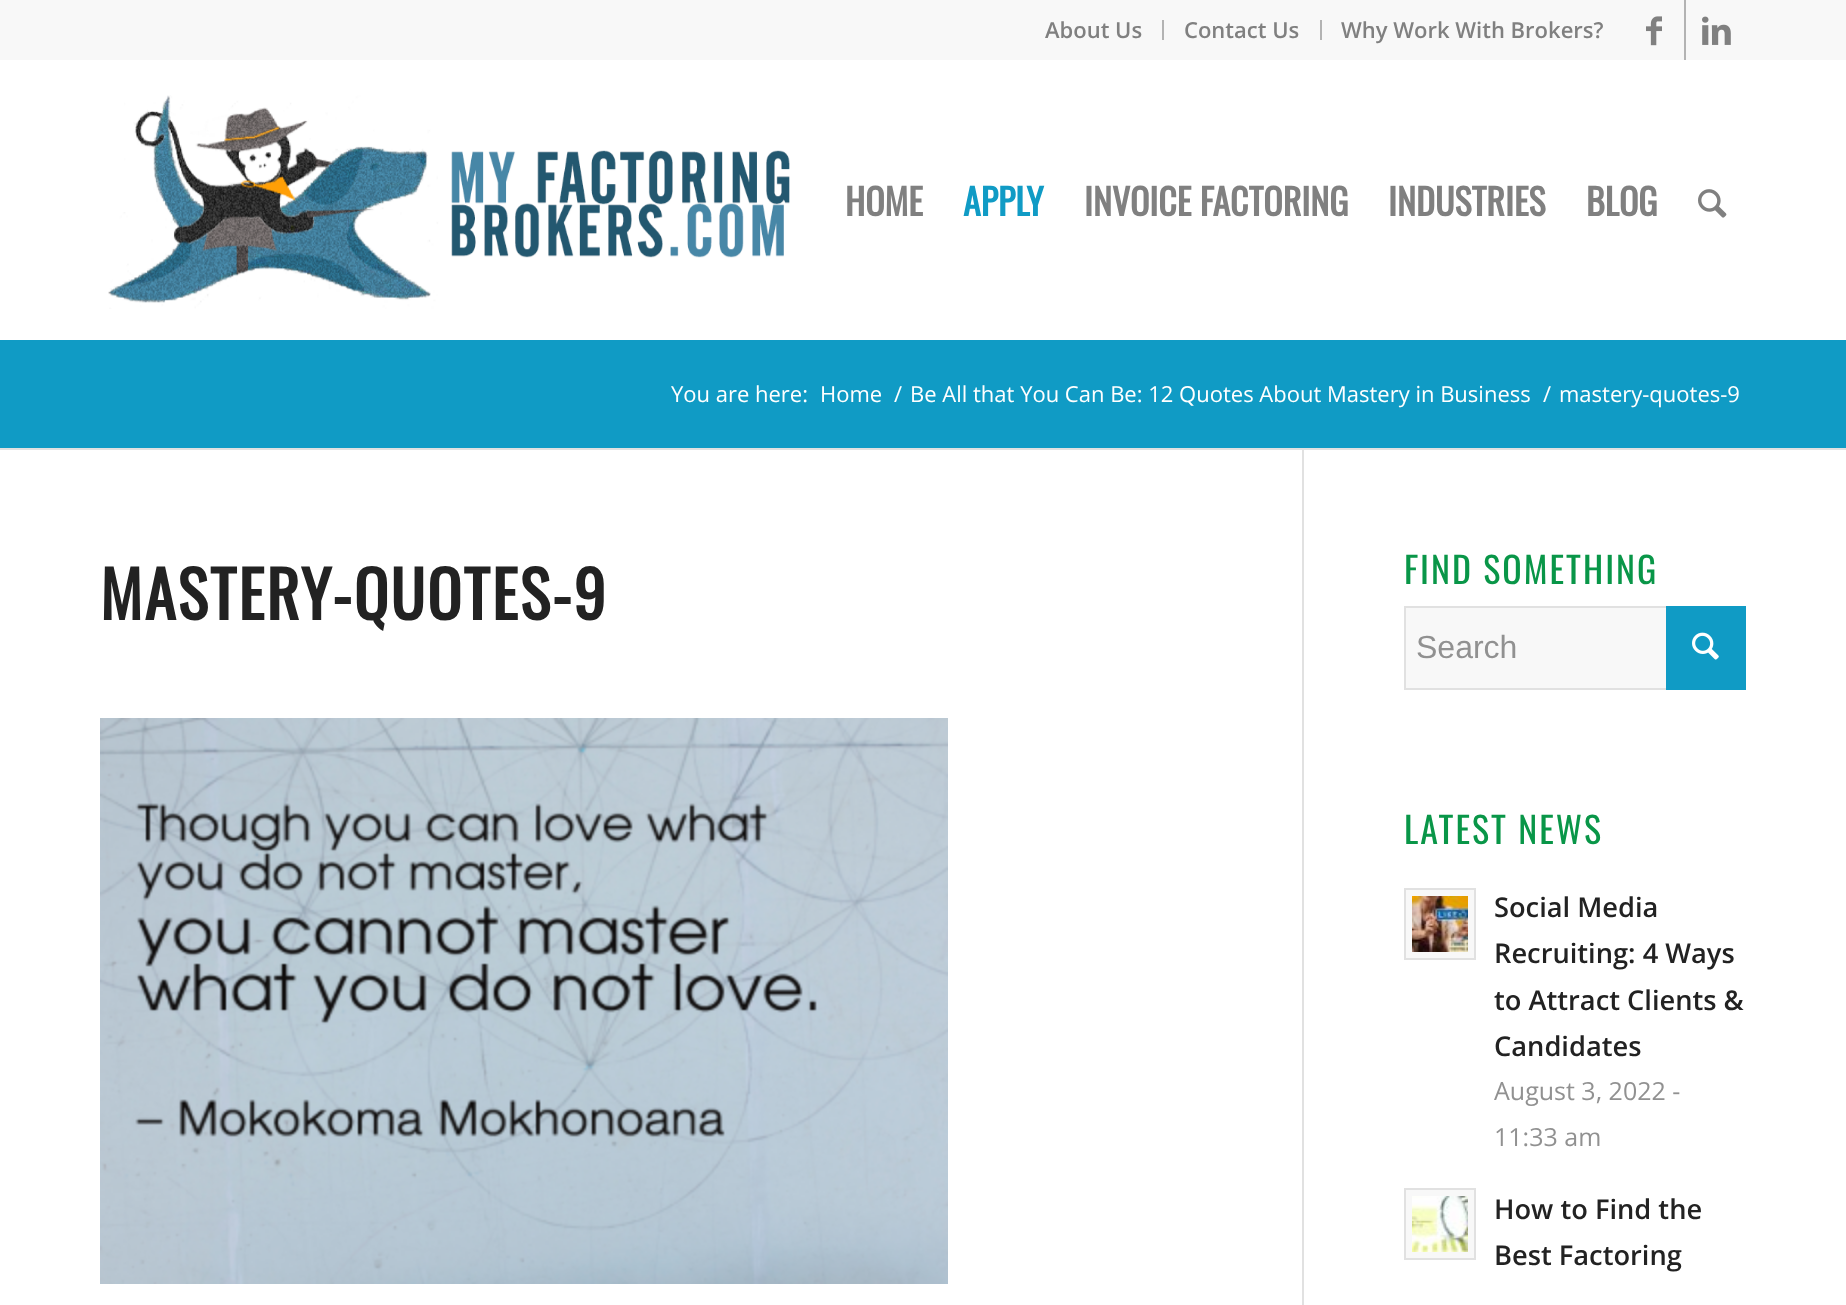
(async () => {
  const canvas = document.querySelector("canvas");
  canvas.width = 1846;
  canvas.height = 1305;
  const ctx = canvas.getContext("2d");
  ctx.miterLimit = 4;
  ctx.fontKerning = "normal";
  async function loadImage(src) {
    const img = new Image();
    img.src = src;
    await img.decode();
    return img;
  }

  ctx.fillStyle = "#ffffff";
  ctx.fillRect(0, 0, 1846, 1305);
  for (const [x, y, w, h, color] of [
    [0, 0, 1846, 60, "#f8f8f8"],
    [1162, 20, 2, 20, "#b3b3b3"],
    [1320, 20, 2, 20, "#b3b3b3"],
    [1684, 0, 2, 60, "#b3b3b3"],
  ]) {
    ctx.fillStyle = color;
    ctx.fillRect(x, y, w, h);
  }
  ctx.drawImage(await loadImage("img/1.png"), 1646, 16, 16, 30);
  ctx.drawImage(await loadImage("img/2.png"), 1702, 16, 29, 29);
  ctx.drawImage(await loadImage("img/3.png"), 108, 95, 682, 214);
  ctx.drawImage(await loadImage("img/4.png"), 1698, 189, 29, 29);
  for (const [x, y, w, h, color] of [
    [0, 340, 1846, 108, "#109bc5"],
    [0, 448, 1846, 2, "#e1e1e1"],
    [1302, 450, 2, 855, "#e1e1e1"],
  ]) {
    ctx.fillStyle = color;
    ctx.fillRect(x, y, w, h);
  }
  ctx.drawImage(await loadImage("img/5.png"), 100, 718, 848, 566);
  ctx.fillStyle = "#f8f8f8";
  ctx.fillRect(1406, 608, 260, 80);
  ctx.strokeStyle = "#e1e1e1";
  ctx.lineWidth = 2;
  ctx.strokeRect(1405, 607, 340, 82);
  ctx.fillStyle = "#109bc5";
  ctx.fillRect(1666, 606, 80, 84);
  ctx.drawImage(await loadImage("img/6.png"), 1692, 632, 27, 28);
  ctx.fillStyle = "#f8f8f8";
  ctx.beginPath();
  ctx.rect(1405, 889, 70, 70);
  ctx.fill();
  ctx.stroke();
  ctx.drawImage(await loadImage("img/7.png"), 1412, 896, 56, 56);
  ctx.beginPath();
  ctx.rect(1405, 1189, 70, 70);
  ctx.fill();
  ctx.stroke();
  ctx.drawImage(await loadImage("img/8.png"), 1412, 1196, 56, 56);
  ctx.font = "600 22px Open Sans";
  ctx.fillStyle = "#808080";
  for (const [text, x, y] of [
    ["About Us", 1045, 38],
    ["Contact Us", 1184, 38],
    ["Why Work With Brokers?", 1341, 38],
  ]) {
    ctx.fillText(text, x, y);
  }
  ctx.font = "bold 36px Oswald";
  ctx.fillText("HOME", 845, 216);
  ctx.fillStyle = "#109bc5";
  ctx.fillText("APPLY", 963, 216);
  ctx.fillStyle = "#808080";
  for (const [text, x, y] of [
    ["INVOICE FACTORING", 1084, 216],
    ["INDUSTRIES", 1388, 216],
    ["BLOG", 1586, 216],
  ]) {
    ctx.fillText(text, x, y);
  }
  ctx.font = "22px Open Sans";
  ctx.fillStyle = "#ffffff";
  for (const [text, x, y] of [
    ["You are here:", 671, 402],
    ["Home", 820, 402],
    ["/", 894, 402],
    ["Be All that You Can Be: 12 Quotes About Mastery in Business", 910, 402],
    ["/", 1543, 402],
    ["mastery-quotes-9", 1559, 402],
  ]) {
    ctx.fillText(text, x, y);
  }
  ctx.letterSpacing = "2px";
  ctx.font = "bold 64px Oswald";
  ctx.fillStyle = "#222222";
  ctx.fillText("MASTERY-QUOTES-9", 100, 620);
  ctx.font = "36px Oswald";
  ctx.fillStyle = "#099648";
  ctx.fillText("FIND SOMETHING", 1404, 584);
  ctx.letterSpacing = "0px";
  ctx.font = "32px Liberation Sans";
  ctx.fillStyle = "#919191";
  ctx.fillText("Search", 1416, 658);
  ctx.letterSpacing = "2px";
  ctx.font = "36px Oswald";
  ctx.fillStyle = "#099648";
  ctx.fillText("LATEST NEWS", 1404, 844);
  ctx.letterSpacing = "0px";
  ctx.font = "600 27.25px Open Sans";
  ctx.fillStyle = "#222222";
  for (const [text, x, y] of [
    ["Social Media", 1494, 917],
    ["Recruiting: 4 Ways", 1494, 963],
    ["to Attract Clients &", 1494, 1010],
    ["Candidates", 1494, 1056],
  ]) {
    ctx.fillText(text, x, y);
  }
  ctx.font = "25px Open Sans";
  ctx.fillStyle = "#919191";
  ctx.fillText("August 3, 2022 -", 1494, 1100);
  ctx.fillText("11:33 am", 1494, 1146);
  ctx.font = "600 27.25px Open Sans";
  ctx.fillStyle = "#222222";
  ctx.fillText("How to Find the", 1494, 1219);
  ctx.fillText("Best Factoring", 1494, 1265);
})();
